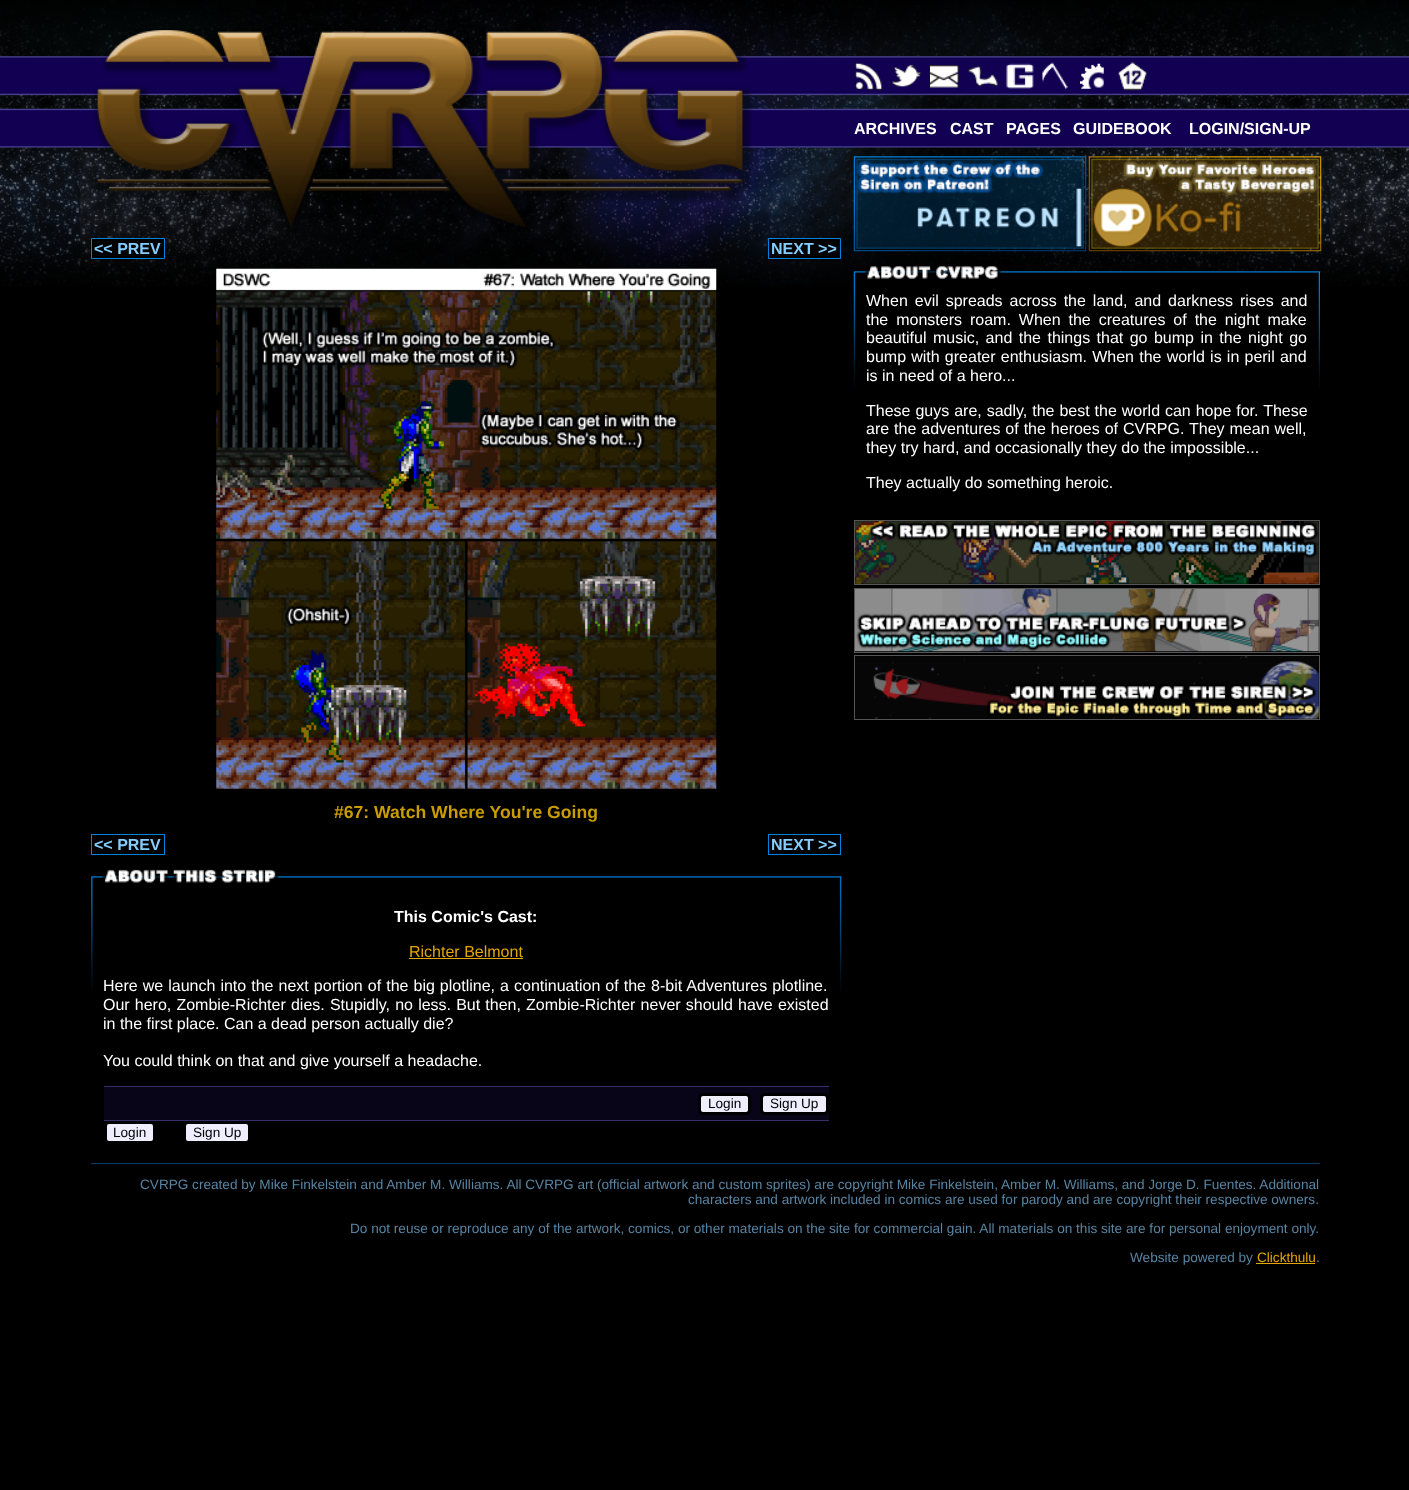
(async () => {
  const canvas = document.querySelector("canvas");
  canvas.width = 1409;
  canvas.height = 1490;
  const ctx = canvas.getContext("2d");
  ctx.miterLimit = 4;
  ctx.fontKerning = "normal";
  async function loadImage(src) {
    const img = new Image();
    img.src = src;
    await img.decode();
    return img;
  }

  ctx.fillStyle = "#000000";
  ctx.fillRect(0, 0, 1409, 1490);
  ctx.drawImage(await loadImage("img/1.png"), 0, 0, 1409, 286);
  ctx.drawImage(await loadImage("img/2.png"), 0, 56, 1409, 92);
  ctx.drawImage(await loadImage("img/3.png"), 92, 28, 661, 204);
  ctx.drawImage(await loadImage("img/4.png"), 855, 62, 28, 29);
  ctx.drawImage(await loadImage("img/5.png"), 892, 64, 30, 23);
  ctx.drawImage(await loadImage("img/6.png"), 930, 65, 29, 23);
  ctx.drawImage(await loadImage("img/7.png"), 968, 66, 30, 21);
  ctx.drawImage(await loadImage("img/8.png"), 1006, 63, 28, 26);
  ctx.drawImage(await loadImage("img/9.png"), 1042, 62, 26, 27);
  ctx.drawImage(await loadImage("img/10.png"), 1080, 63, 24, 26);
  ctx.drawImage(await loadImage("img/11.png"), 1118, 62, 29, 29);
  ctx.beginPath();
  ctx.rect(91.5, 238.5, 73, 20);
  ctx.fill();
  ctx.strokeStyle = "#0083de";
  ctx.stroke();
  ctx.beginPath();
  ctx.rect(768.5, 238.5, 72, 20);
  ctx.fill();
  ctx.stroke();
  ctx.drawImage(await loadImage("img/12.png"), 216, 268, 501, 521);
  ctx.strokeRect(91.5, 834.5, 73, 20);
  ctx.strokeRect(768.5, 834.5, 72, 20);
  ctx.drawImage(await loadImage("img/13.png"), 91, 869, 751, 126);
  for (const [x, y, w, h, color] of [
    [409, 958, 114, 1, "#e4a600"],
    [104, 1087, 725, 33, "#070517"],
    [104, 1086, 725, 1, "#362f6a"],
    [104, 1120, 725, 1, "#362f6a"],
  ]) {
    ctx.fillStyle = color;
    ctx.fillRect(x, y, w, h);
  }
  ctx.fillStyle = "#eeeeff";
  ctx.beginPath();
  ctx.roundRect(699.5, 1094.5, 50, 19, 3.5);
  ctx.fill();
  ctx.strokeStyle = "#000000";
  ctx.lineWidth = 3;
  ctx.stroke();
  ctx.beginPath();
  ctx.roundRect(761.5, 1094.5, 66, 19, 3.5);
  ctx.fill();
  ctx.stroke();
  ctx.beginPath();
  ctx.roundRect(105.5, 1122.5, 49, 20, 3.5);
  ctx.fill();
  ctx.stroke();
  ctx.beginPath();
  ctx.roundRect(184.5, 1122.5, 65, 20, 3.5);
  ctx.fill();
  ctx.stroke();
  ctx.drawImage(await loadImage("img/14.png"), 853, 156, 234, 96);
  ctx.drawImage(await loadImage("img/15.png"), 1088, 156, 234, 96);
  ctx.drawImage(await loadImage("img/16.png"), 853, 264, 467, 126);
  ctx.drawImage(await loadImage("img/17.png"), 855, 521, 464, 63);
  ctx.strokeStyle = "#555555";
  ctx.lineWidth = 1;
  ctx.strokeRect(854.5, 520.5, 465, 64);
  ctx.drawImage(await loadImage("img/18.png"), 855, 589, 464, 63);
  ctx.strokeRect(854.5, 588.5, 465, 64);
  ctx.drawImage(await loadImage("img/19.png"), 855, 656, 464, 63);
  ctx.strokeRect(854.5, 655.5, 465, 64);
  ctx.fillStyle = "#003d68";
  ctx.fillRect(91, 1163, 1229, 1);
  ctx.fillStyle = "#e4a600";
  ctx.fillRect(1256, 1263, 59, 1);
  ctx.font = "bold 16px Liberation Sans";
  ctx.fillStyle = "#ffffff";
  for (const [text, x, y] of [
    ["ARCHIVES", 854, 134],
    ["CAST", 950, 134],
    ["PAGES", 1006, 134],
    ["GUIDEBOOK", 1073, 134],
    ["LOGIN/SIGN-UP", 1189, 134],
  ]) {
    ctx.fillText(text, x, y);
  }
  ctx.fillStyle = "#84cdff";
  ctx.fillText("<< PREV", 94, 254);
  ctx.fillText("NEXT >>", 771, 254);
  ctx.font = "bold 17.6px Liberation Sans";
  ctx.fillStyle = "#c99c02";
  ctx.fillText("#67: Watch Where You're Going", 334, 818);
  ctx.font = "bold 16px Liberation Sans";
  ctx.fillStyle = "#84cdff";
  ctx.fillText("<< PREV", 94, 850);
  ctx.fillText("NEXT >>", 771, 850);
  ctx.fillStyle = "#ffffff";
  ctx.fillText("This Comic's Cast:", 394, 922);
  ctx.font = "16px Liberation Sans";
  ctx.fillStyle = "#e4a600";
  ctx.fillText("Richter Belmont", 409, 957);
  ctx.wordSpacing = "0.6px";
  ctx.fillStyle = "#ffffff";
  ctx.fillText("Here we launch into the next portion of the big plotline, a continuation of the 8-bit Adventures plotline.", 103, 991);
  ctx.wordSpacing = "0.7px";
  ctx.fillText("Our hero, Zombie-Richter dies. Stupidly, no less. But then, Zombie-Richter never should have existed", 103, 1010);
  ctx.wordSpacing = "0px";
  ctx.fillText("in the first place. Can a dead person actually die?", 103, 1029);
  ctx.fillText("You could think on that and give yourself a headache.", 103, 1066);
  ctx.font = "13.6px Liberation Sans";
  ctx.fillStyle = "#000000";
  for (const [text, x, y] of [
    ["Login", 708, 1108],
    ["Sign Up", 770, 1108],
    ["Login", 113, 1137],
    ["Sign Up", 193, 1137],
  ]) {
    ctx.fillText(text, x, y);
  }
  ctx.wordSpacing = "2.5px";
  ctx.font = "16px Liberation Sans";
  ctx.fillStyle = "#ffffff";
  ctx.fillText("When evil spreads across the land, and darkness rises and", 866, 306);
  ctx.wordSpacing = "3.5px";
  ctx.fillText("the monsters roam. When the creatures of the night make", 866, 325);
  ctx.wordSpacing = "2px";
  ctx.fillText("beautiful music, and the things that go bump in the night go", 866, 343);
  ctx.wordSpacing = "0.75px";
  ctx.fillText("bump with greater enthusiasm. When the world is in peril and", 866, 362);
  ctx.wordSpacing = "0px";
  ctx.fillText("is in need of a hero...", 866, 381);
  ctx.wordSpacing = "0.5px";
  ctx.fillText("These guys are, sadly, the best the world can hope for. These", 866, 416);
  ctx.fillText("are the adventures of the heroes of CVRPG. They mean well,", 866, 434);
  ctx.wordSpacing = "0px";
  ctx.fillText("they try hard, and occasionally they do the impossible...", 866, 453);
  ctx.fillText("They actually do something heroic.", 866, 488);
  ctx.font = "13.6px Liberation Sans";
  ctx.fillStyle = "#5884a3";
  for (const [text, x, y] of [
    ["CVRPG created by Mike Finkelstein and Amber M. Williams. All CVRPG art (official artwork and custom sprites) are copyright Mike Finkelstein, Amber M. Williams, and Jorge D. Fuentes. Additional", 140, 1189],
    ["characters and artwork included in comics are used for parody and are copyright their respective owners.", 688, 1204],
    ["Do not reuse or reproduce any of the artwork, comics, or other materials on the site for commercial gain. All materials on this site are for personal enjoyment only.", 350, 1233],
    ["Website powered by", 1130, 1262],
  ]) {
    ctx.fillText(text, x, y);
  }
  ctx.fillStyle = "#e4a600";
  ctx.fillText("Clickthulu", 1257, 1262);
  ctx.fillStyle = "#5884a3";
  ctx.fillText(".", 1316, 1262);
})();
